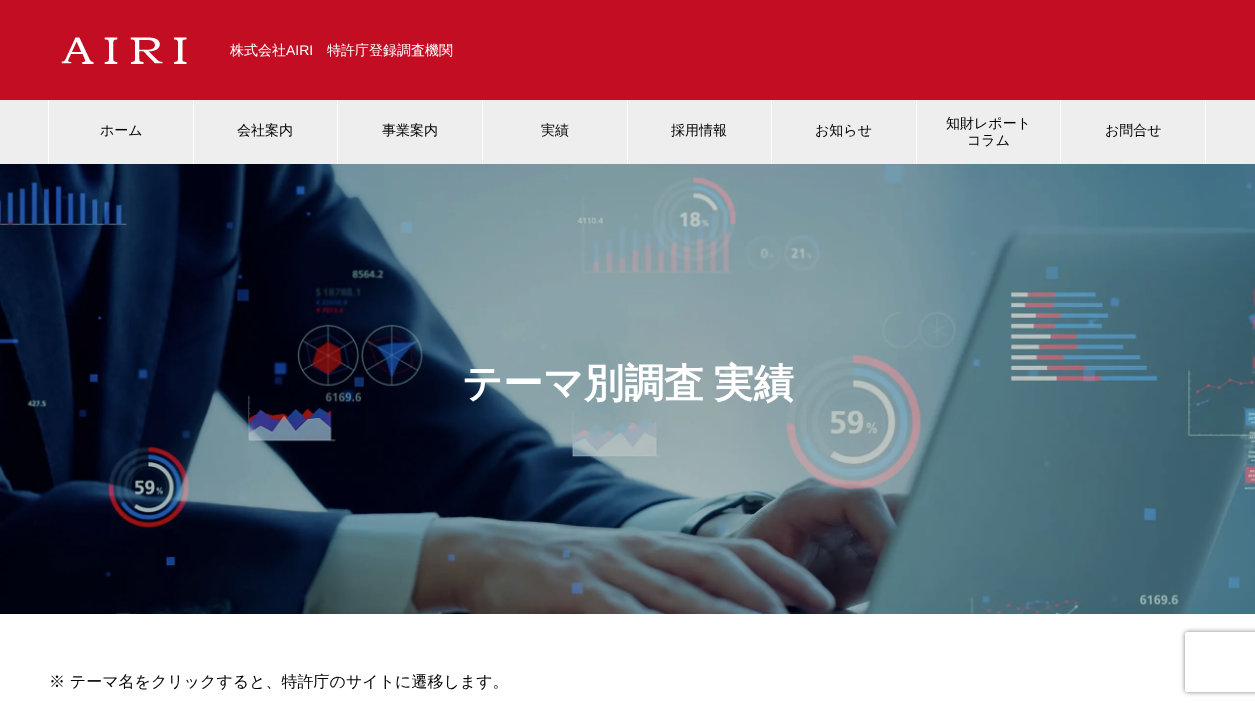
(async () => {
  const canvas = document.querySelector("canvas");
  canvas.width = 1255;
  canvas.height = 706;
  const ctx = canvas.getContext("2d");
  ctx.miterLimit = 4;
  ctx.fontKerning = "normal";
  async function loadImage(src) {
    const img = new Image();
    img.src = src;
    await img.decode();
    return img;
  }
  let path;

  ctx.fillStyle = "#ffffff";
  ctx.fillRect(0, 0, 1255, 706);
  ctx.fillStyle = "#c30d23";
  ctx.fillRect(0, 0, 1255, 100);
  ctx.drawImage(await loadImage("img/1.png"), 61, 37, 126, 27);
  for (const [x, y, w, h, color] of [
    [0, 100, 1255, 64, "#eeeeee"],
    [193, 100, 1, 64, "#ffffff"],
    [48, 100, 1, 64, "#ffffff"],
    [337, 100, 1, 64, "#ffffff"],
    [482, 100, 1, 64, "#ffffff"],
    [627, 100, 1, 64, "#ffffff"],
    [916, 100, 1, 64, "#ffffff"],
    [771, 100, 1, 64, "#ffffff"],
    [1060, 100, 1, 64, "#ffffff"],
    [1205, 100, 1, 64, "#ffffff"],
  ]) {
    ctx.fillStyle = color;
    ctx.fillRect(x, y, w, h);
  }
  ctx.drawImage(await loadImage("img/2.png"), 0, 164, 1255, 450);
  ctx.save();
  path = new Path2D("M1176 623H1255V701H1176ZM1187 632H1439C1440 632 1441 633 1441 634V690C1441 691 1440 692 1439 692H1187C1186 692 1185 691 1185 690V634C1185 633 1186 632 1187 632Z");
  ctx.clip(path, "evenodd");
  ctx.fillStyle = "#808080";
  ctx.filter = "blur(2.5px)";
  ctx.beginPath();
  ctx.roundRect(1185, 632, 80, 60, 2);
  ctx.fill();
  ctx.filter = "none";
  ctx.restore();
  ctx.font = "500 14px WenQuanYi Zen Hei";
  ctx.fillText("株式会社", 230, 55);
  ctx.font = "14px Liberation Sans";
  ctx.fillText("AIRI", 286, 55);
  ctx.font = "500 14px WenQuanYi Zen Hei";
  ctx.fillText("特許庁登録調査機関", 327, 55);
  ctx.fillStyle = "#000000";
  for (const [text, x, y] of [
    ["ホーム", 100, 135],
    ["会社案内", 237, 135],
    ["事業案内", 382, 135],
    ["実績", 541, 135],
    ["採用情報", 671, 135],
    ["お知らせ", 815, 135],
    ["知財レポート", 946, 128],
    ["コラム", 967, 145],
    ["お問合せ", 1105, 135],
  ]) {
    ctx.fillText(text, x, y);
  }
  ctx.wordSpacing = "-2px";
  ctx.font = "bold 40px WenQuanYi Zen Hei";
  ctx.fillStyle = "#ffffff";
  ctx.fillText("テーマ別調査 実績", 462, 397);
  ctx.wordSpacing = "0px";
  ctx.font = "500 16px WenQuanYi Zen Hei";
  ctx.fillStyle = "#000000";
  ctx.fillText("※ テーマ名をクリックすると、特許庁のサイトに遷移します。", 49, 687);
})();
